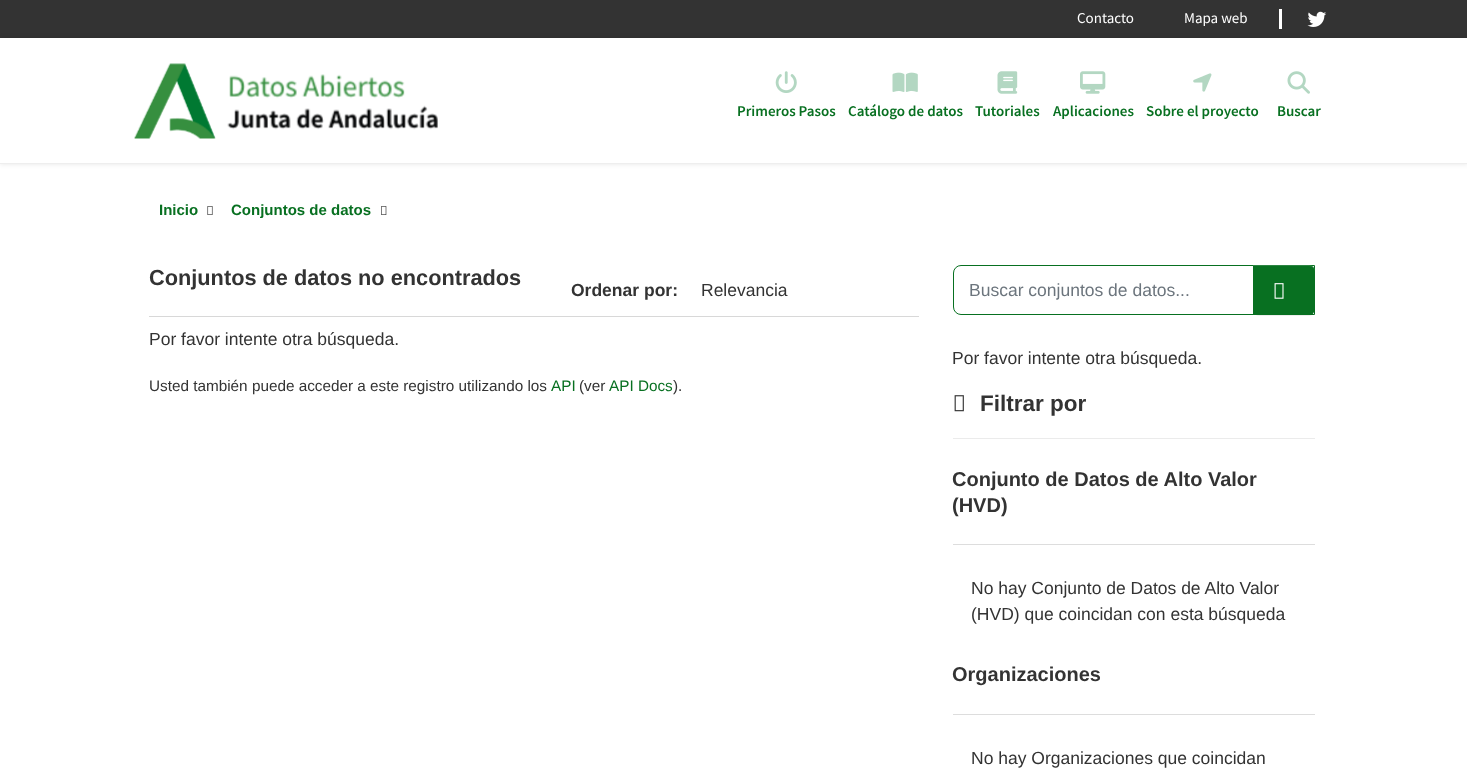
(async () => {
  const canvas = document.querySelector("canvas");
  canvas.width = 1467;
  canvas.height = 778;
  const ctx = canvas.getContext("2d");
  ctx.miterLimit = 4;
  ctx.fontKerning = "normal";
  async function loadImage(src) {
    const img = new Image();
    img.src = src;
    await img.decode();
    return img;
  }
  let path;

  ctx.fillStyle = "#ffffff";
  ctx.fillRect(0, 0, 1467, 778);
  ctx.fillStyle = "#333333";
  ctx.fillRect(0, 0, 1467, 38);
  ctx.fillStyle = "#ffffff";
  ctx.fillRect(1279, 9, 3, 20);
  ctx.drawImage(await loadImage("img/1.png"), 1307, 11, 20, 16);
  ctx.fillStyle = "rgba(0, 0, 0, 0.1)";
  ctx.filter = "blur(2.5px)";
  ctx.beginPath();
  ctx.rect(0, 38, 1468, 126);
  ctx.fill();
  ctx.filter = "none";
  ctx.fillStyle = "#ffffff";
  ctx.fillRect(0, 38, 1467, 125);
  ctx.fillStyle = "#eeeeee";
  ctx.fillRect(0, 163, 1467, 1);
  ctx.drawImage(await loadImage("img/2.png"), 134, 63, 82, 76);
  ctx.drawImage(await loadImage("img/3.png"), 227, 74, 211, 56);
  ctx.drawImage(await loadImage("img/4.png"), 775, 71, 22, 22);
  ctx.drawImage(await loadImage("img/5.png"), 892, 72, 26, 20);
  ctx.drawImage(await loadImage("img/6.png"), 997, 71, 21, 23);
  ctx.drawImage(await loadImage("img/7.png"), 1080, 71, 26, 23);
  ctx.drawImage(await loadImage("img/8.png"), 1193, 73, 19, 19);
  ctx.drawImage(await loadImage("img/9.png"), 1287, 71, 23, 23);
  ctx.drawImage(await loadImage("img/10.png"), 207, 206, 6, 9);
  ctx.drawImage(await loadImage("img/11.png"), 381, 206, 6, 9);
  ctx.fillStyle = "#d8d8d8";
  ctx.fillRect(149, 316, 770, 1);
  ctx.beginPath();
  ctx.roundRect(953.5, 265.5, 361, 49, [7.5, 0, 0, 7.5]);
  ctx.strokeStyle = "#087021";
  ctx.stroke();
  ctx.fillStyle = "rgba(0, 0, 0, 0.07)";
  ctx.filter = "blur(0.5px)";
  ctx.beginPath();
  ctx.roundRect(1253, 266, 62, 50, 6);
  ctx.fill();
  ctx.filter = "none";
  ctx.fillStyle = "#087021";
  ctx.beginPath();
  ctx.roundRect(1253, 265, 62, 50, [0, 6, 6, 0]);
  ctx.fill();
  ctx.fillStyle = "rgba(255, 255, 255, 0.15)";
  path = new Path2D("M1253 265V266H1309C1312 266 1315 269 1315 272C1315 268 1313 265 1309 265Z");
  ctx.fill(path);
  ctx.drawImage(await loadImage("img/12.png"), 1274, 283, 10, 16);
  ctx.fillStyle = "#ebebeb";
  ctx.fillRect(953, 438, 362, 1);
  ctx.drawImage(await loadImage("img/13.png"), 954, 395, 10, 17);
  ctx.fillStyle = "#dddddd";
  ctx.fillRect(953, 544, 362, 1);
  ctx.fillRect(953, 714, 362, 1);
  ctx.font = "15px Source Sans Pro";
  ctx.fillStyle = "#ffffff";
  ctx.fillText("Contacto", 1077, 23);
  ctx.fillText("Mapa web", 1184, 23);
  ctx.font = "600 15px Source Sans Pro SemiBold";
  ctx.fillStyle = "#087021";
  for (const [text, x, y] of [
    ["Primeros Pasos", 737, 116],
    ["Catálogo de datos", 848, 116],
    ["Tutoriales", 975, 116],
    ["Aplicaciones", 1053, 116],
    ["Sobre el proyecto", 1146, 116],
    ["Buscar", 1277, 116],
  ]) {
    ctx.fillText(text, x, y);
  }
  ctx.font = "bold 15px Liberation Sans";
  ctx.fillText("Inicio", 159, 215);
  ctx.fillText("Conjuntos de datos", 231, 215);
  ctx.font = "bold 21.75px Liberation Sans";
  ctx.fillStyle = "#333333";
  ctx.fillText("Conjuntos de datos no encontrados", 149, 285);
  ctx.font = "bold 17.5px Liberation Sans";
  ctx.fillText("Ordenar por:", 571, 296);
  ctx.font = "17.5px Liberation Sans";
  ctx.fillText("Relevancia", 701, 296);
  ctx.fillText("Por favor intente otra búsqueda.", 149, 345);
  ctx.font = "15.3px Liberation Sans";
  ctx.fillText("Usted también puede acceder a este registro utilizando los", 149, 391);
  ctx.fillStyle = "#087021";
  ctx.fillText("API", 551, 391);
  ctx.fillStyle = "#333333";
  ctx.fillText("(ver", 579, 391);
  ctx.fillStyle = "#087021";
  ctx.fillText("API Docs", 609, 391);
  ctx.fillStyle = "#333333";
  ctx.fillText(").", 673, 391);
  ctx.font = "17.5px Liberation Sans";
  ctx.fillStyle = "#6c757d";
  ctx.fillText("Buscar conjuntos de datos...", 969, 296);
  ctx.fillStyle = "#333333";
  ctx.fillText("Por favor intente otra búsqueda.", 952, 364);
  ctx.font = "bold 22.5px Liberation Sans";
  ctx.fillText("Filtrar por", 980, 411);
  ctx.font = "bold 20px Liberation Sans";
  ctx.fillText("Conjunto de Datos de Alto Valor", 952, 486);
  ctx.fillText("(HVD)", 952, 512);
  ctx.font = "17.5px Liberation Sans";
  ctx.fillText("No hay Conjunto de Datos de Alto Valor", 971, 594);
  ctx.fillText("(HVD) que coincidan con esta búsqueda", 971, 620);
  ctx.font = "bold 20px Liberation Sans";
  ctx.fillText("Organizaciones", 952, 681);
  ctx.font = "17.5px Liberation Sans";
  ctx.fillText("No hay Organizaciones que coincidan", 971, 764);
})();
